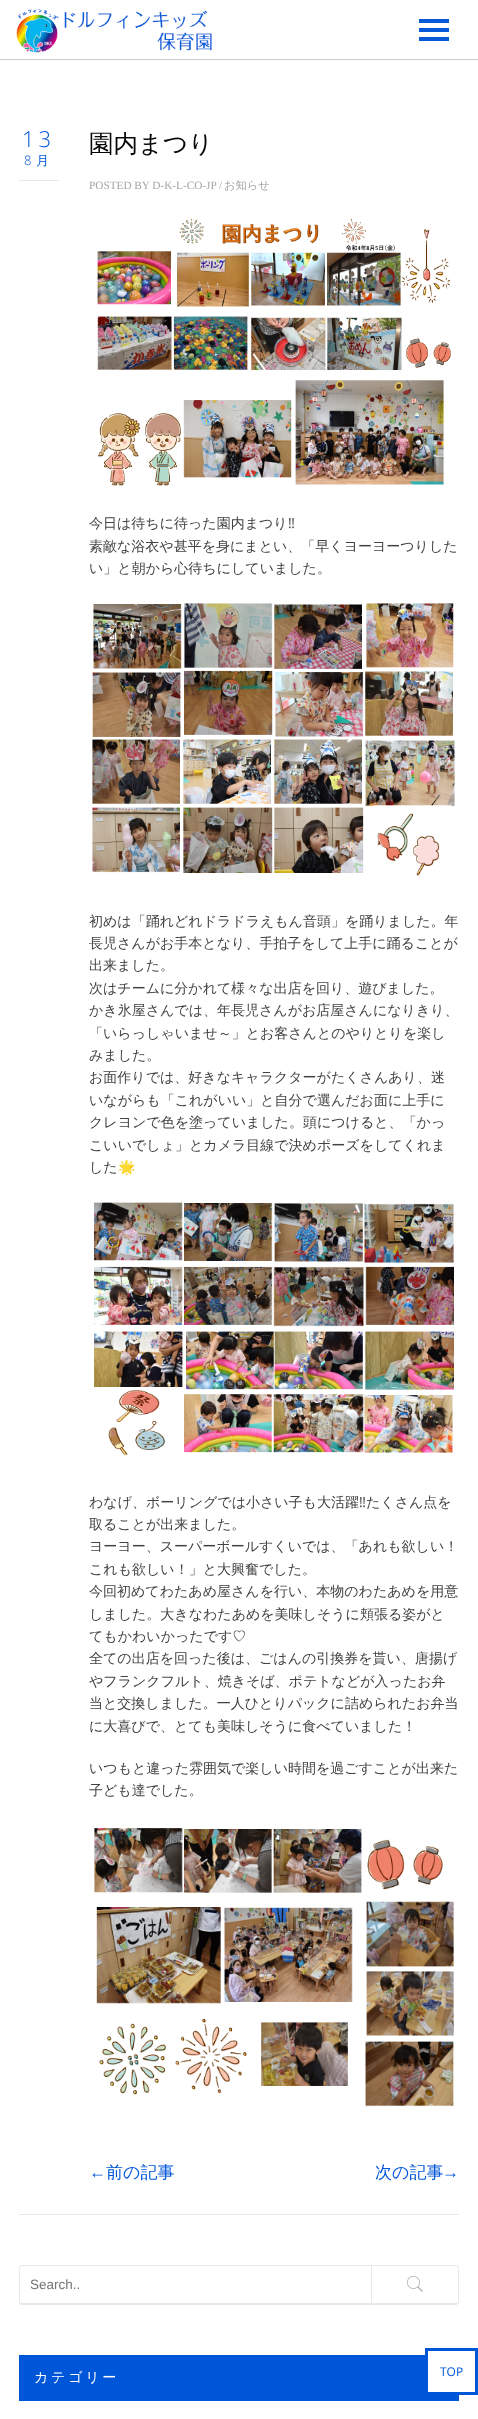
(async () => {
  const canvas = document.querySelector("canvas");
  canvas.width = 478;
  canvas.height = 2419;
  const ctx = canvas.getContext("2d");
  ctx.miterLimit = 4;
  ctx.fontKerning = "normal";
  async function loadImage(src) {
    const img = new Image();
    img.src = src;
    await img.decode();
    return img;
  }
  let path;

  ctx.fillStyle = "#ffffff";
  ctx.fillRect(0, 0, 478, 2419);
  ctx.fillStyle = "#cdcdcd";
  ctx.fillRect(0, 59, 478, 1);
  ctx.drawImage(await loadImage("img/1.png"), 16, 8, 196, 46);
  for (const [x, y, w, h, color] of [
    [419, 19, 30, 4, "#0559d9"],
    [419, 28, 30, 4, "#0559d9"],
    [419, 37, 30, 4, "#0559d9"],
    [19, 2214, 440, 1, "#e9e9e9"],
    [19, 180, 40, 1, "#e9e9e9"],
  ]) {
    ctx.fillStyle = color;
    ctx.fillRect(x, y, w, h);
  }
  ctx.drawImage(await loadImage("img/2.png"), 97, 218, 354, 268);
  ctx.drawImage(await loadImage("img/3.png"), 92, 603, 363, 273);
  ctx.drawImage(await loadImage("img/4.png"), 94, 1202, 360, 254);
  ctx.drawImage(await loadImage("img/5.png"), 94, 1828, 360, 279);
  path = new Path2D("M22 2265H371V2305H22C20 2305 19 2304 19 2302V2268C19 2266 20 2265 22 2265ZM22 2266H371V2303H21L20 2302V2274C20 2273 19 2266 22 2266Z");
  ctx.fill(path, "evenodd");
  ctx.drawImage(await loadImage("img/6.png"), 407, 2276, 16, 16);
  ctx.beginPath();
  ctx.roundRect(371.5, 2265.5, 87, 39, [0, 2.5, 2.5, 0]);
  ctx.strokeStyle = "#e9e9e9";
  ctx.stroke();
  for (const [x, y, w, h, color] of [
    [371, 2303, 87, 1, "#e9e9e9"],
    [19, 2355, 440, 46, "#0056d8"],
    [428, 2355, 31, 37, "#ffffff"],
  ]) {
    ctx.fillStyle = color;
    ctx.fillRect(x, y, w, h);
  }
  ctx.strokeStyle = "#0056d8";
  ctx.lineWidth = 3;
  ctx.strokeRect(426.5, 2349.5, 50, 44);
  ctx.letterSpacing = "4px";
  ctx.font = "300 22px Open Sans";
  ctx.fillStyle = "#0056d8";
  ctx.fillText("13", 22, 147);
  ctx.font = "300 13px Open Sans";
  ctx.fillText("8", 24, 165);
  ctx.font = "500 13px WenQuanYi Zen Hei";
  ctx.fillText("月", 36, 165);
  ctx.letterSpacing = "0px";
  ctx.font = "500 24.5px WenQuanYi Zen Hei";
  ctx.fillStyle = "#060606";
  ctx.fillText("園内まつり", 89, 152);
  ctx.font = "11.25px Liberation Serif";
  ctx.fillStyle = "#a4a4a3";
  ctx.fillText("POSTED BY D-K-L-CO-JP", 89, 189);
  ctx.fillText("/", 219, 189);
  ctx.font = "500 11.25px WenQuanYi Zen Hei";
  ctx.fillText("お知らせ", 224, 189);
  ctx.font = "500 14px WenQuanYi Zen Hei";
  ctx.fillStyle = "#424242";
  ctx.fillText("今日は待ちに待った園内まつり", 89, 528);
  ctx.font = "14px Open Sans";
  ctx.fillText("‼", 288, 528);
  ctx.font = "500 14px WenQuanYi Zen Hei";
  for (const [text, x, y] of [
    ["素敵な浴衣や甚平を身にまとい、「早くヨーヨーつりした", 89, 551],
    ["い」と朝から心待ちにしていました。", 89, 573],
    ["初めは「踊れどれドラドラえもん音頭」を踊りました。年", 89, 926],
    ["長児さんがお手本となり、手拍子をして上手に踊ることが", 89, 948],
    ["出来ました。", 89, 970],
    ["次はチームに分かれて様々な出店を回り、遊びました。", 89, 993],
    ["かき氷屋さんでは、年長児さんがお店屋さんになりきり、", 89, 1015],
    ["「いらっしゃいませ～」とお客さんとのやりとりを楽し", 89, 1038],
    ["みました。", 89, 1060],
    ["お面作りでは、好きなキャラクターがたくさんあり、迷", 89, 1082],
    ["いながらも「これがいい」と自分で選んだお面に上手に", 89, 1105],
    ["クレヨンで色を塗っていました。頭につけると、「かっ", 89, 1127],
    ["こいいでしょ」とカメラ目線で決めポーズをしてくれま", 89, 1150],
    ["した", 89, 1172],
  ]) {
    ctx.fillText(text, x, y);
  }
  ctx.font = "14px Noto Color Emoji";
  ctx.fillText("🌟", 118, 1172);
  ctx.font = "500 14px WenQuanYi Zen Hei";
  ctx.fillText("わなげ、ボーリングでは小さい子も大活躍", 89, 1507);
  ctx.font = "14px Open Sans";
  ctx.fillText("‼", 359, 1507);
  ctx.font = "500 14px WenQuanYi Zen Hei";
  for (const [text, x, y] of [
    ["たくさん点を", 366, 1507],
    ["取ることが出来ました。", 89, 1529],
    ["ヨーヨー、スーパーボールすくいでは、「あれも欲しい！", 89, 1551],
    ["これも欲しい！」と大興奮でした。", 89, 1574],
    ["今回初めてわたあめ屋さんを行い、本物のわたあめを用意", 89, 1596],
    ["しました。大きなわたあめを美味しそうに頬張る姿がと", 89, 1619],
    ["てもかわいかったです♡", 89, 1641],
    ["全ての出店を回った後は、ごはんの引換券を貰い、唐揚げ", 89, 1663],
    ["やフランクフルト、焼きそば、ポテトなどが入ったお弁", 89, 1686],
    ["当と交換しました。一人ひとりパックに詰められたお弁当", 89, 1708],
    ["に大喜びで、とても美味しそうに食べていました！", 89, 1731],
    ["いつもと違った雰囲気で楽しい時間を過ごすことが出来た", 89, 1773],
    ["子ども達でした。", 89, 1795],
  ]) {
    ctx.fillText(text, x, y);
  }
  ctx.font = "17px Liberation Serif";
  ctx.fillStyle = "#0056d8";
  ctx.fillText("←", 89, 2178);
  ctx.font = "500 17px WenQuanYi Zen Hei";
  ctx.fillText("前の記事", 106, 2178);
  ctx.fillText("次の記事", 375, 2178);
  ctx.font = "17px Liberation Serif";
  ctx.fillText("→", 442, 2178);
  ctx.font = "13.5px Liberation Sans";
  ctx.fillStyle = "#757575";
  ctx.fillText("Search..", 30, 2289);
  ctx.letterSpacing = "2.75px";
  ctx.font = "500 14px WenQuanYi Zen Hei";
  ctx.fillStyle = "#ffffff";
  ctx.fillText("カテゴリー", 34, 2382);
  ctx.letterSpacing = "0px";
  ctx.font = "12px Open Sans";
  ctx.fillStyle = "#0056d8";
  ctx.fillText("TOP", 440, 2376);
})();
